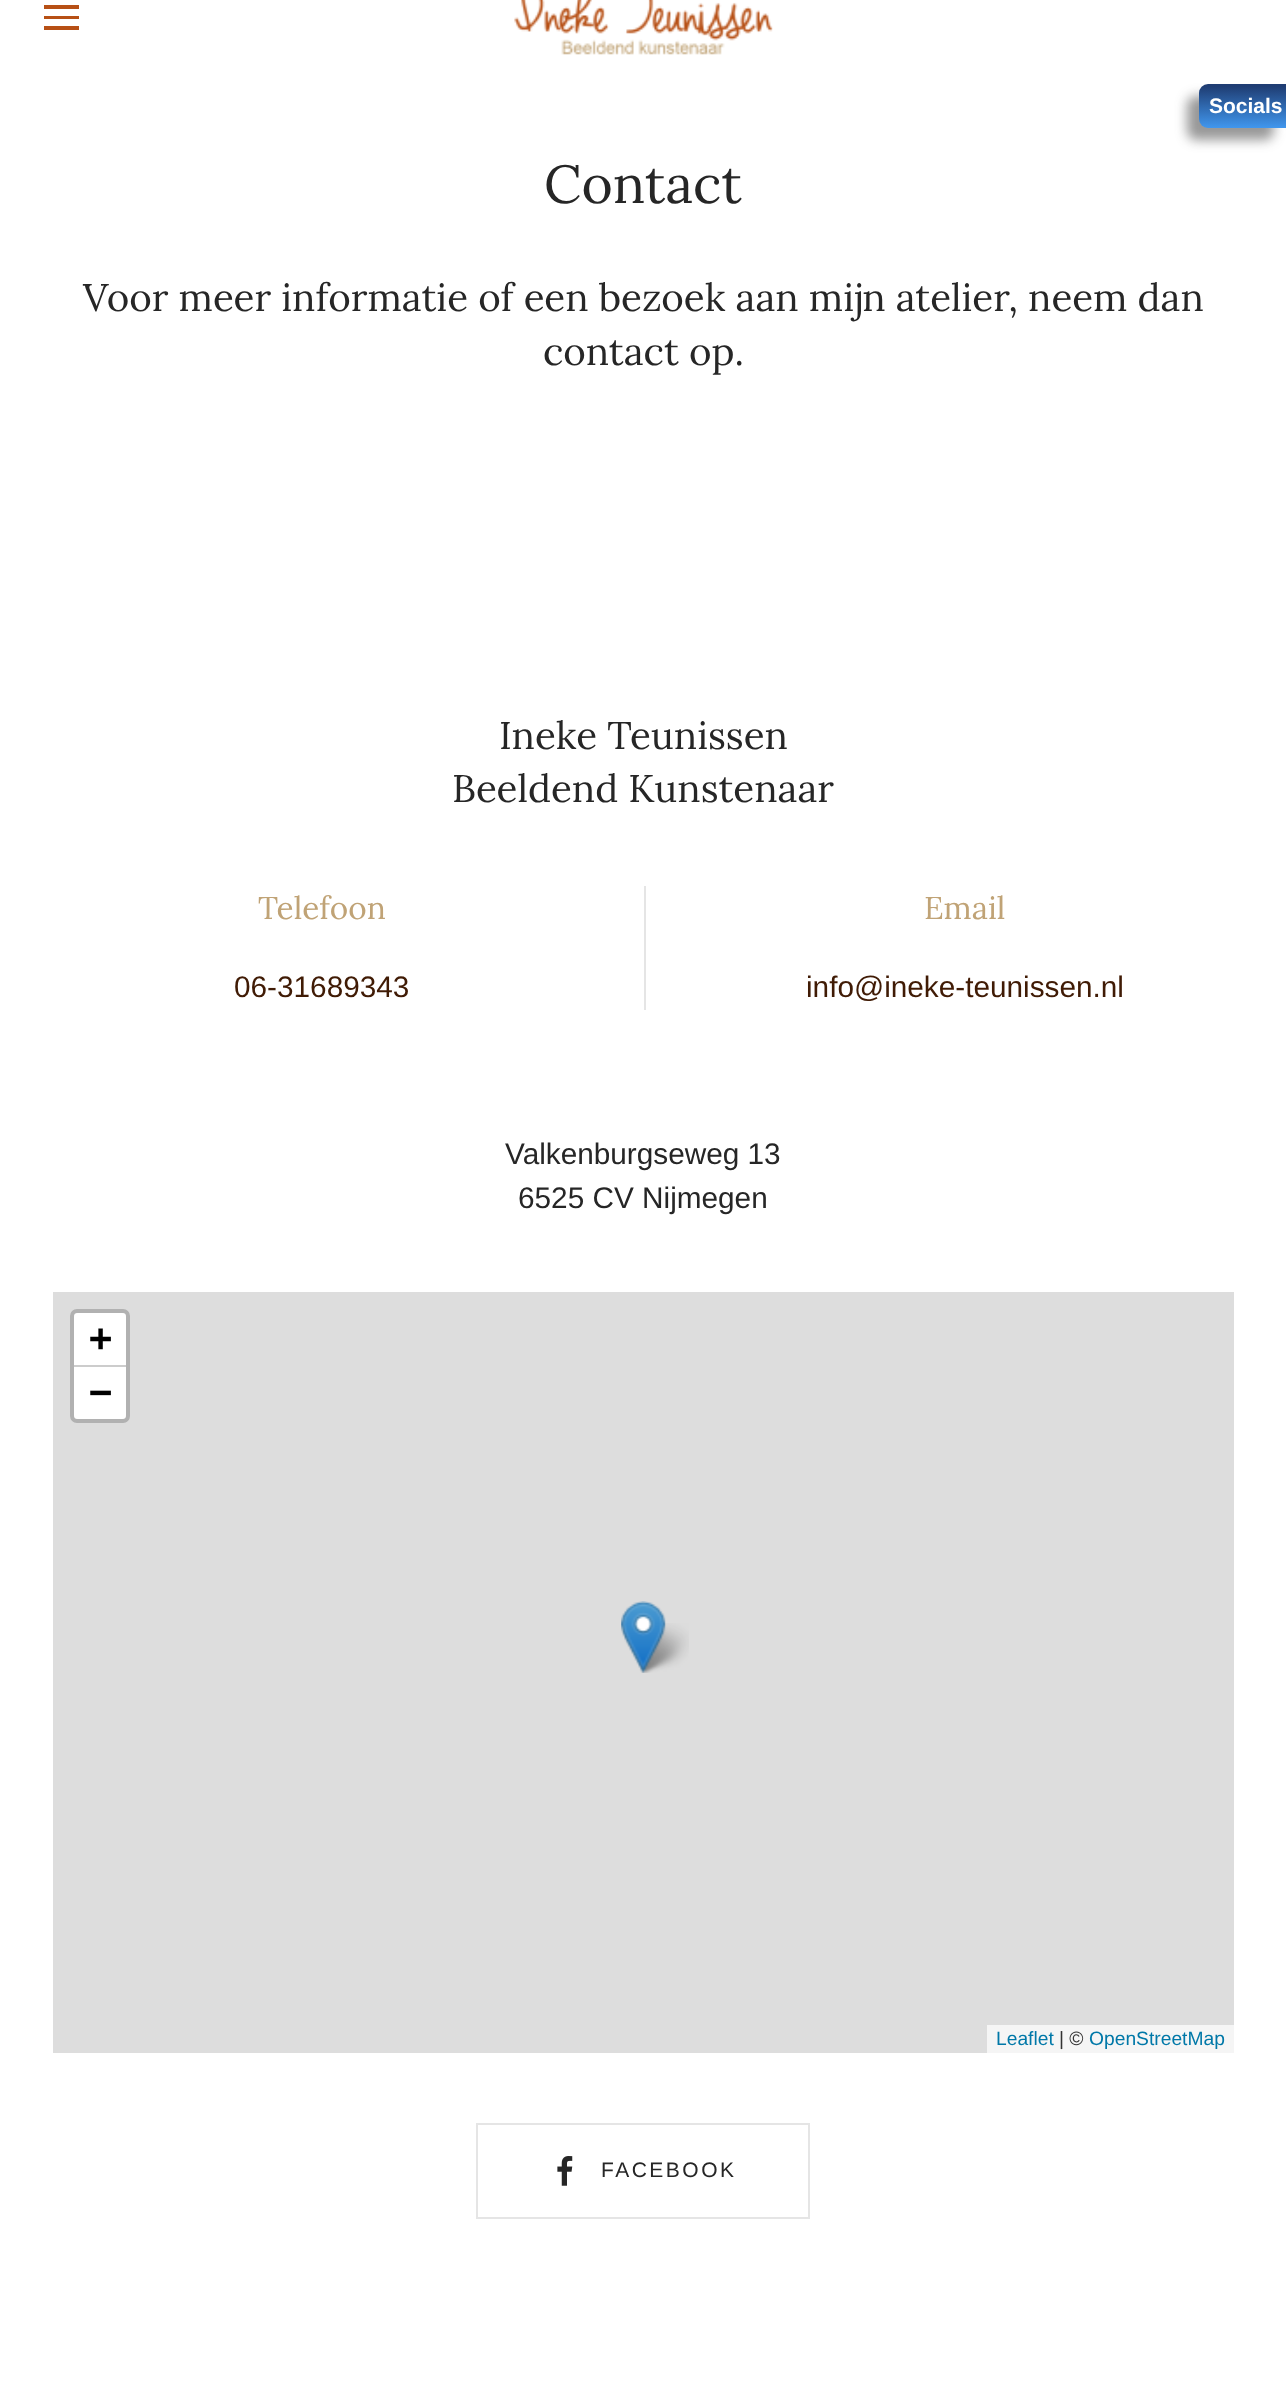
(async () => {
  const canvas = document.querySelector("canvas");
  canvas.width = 1286;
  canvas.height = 2386;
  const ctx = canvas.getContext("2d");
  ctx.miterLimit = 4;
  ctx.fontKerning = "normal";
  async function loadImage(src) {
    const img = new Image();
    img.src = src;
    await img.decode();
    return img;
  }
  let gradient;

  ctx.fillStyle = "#ffffff";
  ctx.fillRect(0, 0, 1286, 2386);
  ctx.fillStyle = "rgba(50, 50, 50, 0.5)";
  ctx.filter = "blur(6px)";
  ctx.beginPath();
  ctx.roundRect(1187, 96, 87, 44, 9);
  ctx.fill();
  ctx.filter = "none";
  gradient = ctx.createLinearGradient(1199, 84, 1199, 128);
  gradient.addColorStop(0.05, "#1f3d73");
  gradient.addColorStop(1, "#4197ee");
  ctx.fillStyle = gradient;
  ctx.beginPath();
  ctx.roundRect(1199, 84, 87, 44, [9, 0, 0, 9]);
  ctx.fill();
  for (const [x, y, w, h, color] of [
    [44, 5, 35, 4, "#b75015"],
    [44, 16, 35, 3, "#b75015"],
    [44, 26, 35, 4, "#b75015"],
  ]) {
    ctx.fillStyle = color;
    ctx.fillRect(x, y, w, h);
  }
  ctx.drawImage(await loadImage("img/1.png"), 514, 0, 259, 55);
  ctx.fillStyle = "#e5e5e5";
  ctx.fillRect(644, 886, 2, 124);
  ctx.fillStyle = "#dddddd";
  ctx.fillRect(53, 1292, 1181, 761);
  ctx.beginPath();
  ctx.roundRect(72, 1311, 56, 110, 5);
  ctx.strokeStyle = "#b1b1b1";
  ctx.lineWidth = 4;
  ctx.stroke();
  ctx.fillStyle = "#ffffff";
  ctx.beginPath();
  ctx.roundRect(74, 1313, 52, 54, [4, 4, 0, 0]);
  ctx.fill();
  ctx.fillStyle = "#cccccc";
  ctx.fillRect(74, 1365, 52, 2);
  ctx.fillStyle = "#ffffff";
  ctx.beginPath();
  ctx.roundRect(74, 1367, 52, 52, [0, 0, 4, 4]);
  ctx.fill();
  ctx.fillStyle = "#f5f5f5";
  ctx.fillRect(987, 2025, 247, 28);
  ctx.drawImage(await loadImage("img/3.png"), 637, 1623, 52, 50);
  ctx.drawImage(await loadImage("img/2.png"), 621, 1601, 45, 72);
  ctx.strokeStyle = "#e5e5e5";
  ctx.lineWidth = 2;
  ctx.strokeRect(477, 2124, 332, 94);
  ctx.drawImage(await loadImage("img/4.png"), 557, 2156, 16, 30);
  ctx.font = "bold 21px Liberation Sans";
  ctx.fillStyle = "#ffffff";
  ctx.fillText("Socials", 1209, 113);
  ctx.font = "53.5px Lora";
  ctx.fillStyle = "#262626";
  ctx.fillText("Contact", 544, 203);
  ctx.font = "38.5px Lora";
  for (const [text, x, y] of [
    ["Voor meer informatie of een bezoek aan mijn atelier, neem dan", 83, 311],
    ["contact op.", 543, 365],
    ["Ineke Teunissen", 499, 749],
    ["Beeldend Kunstenaar", 452, 802],
  ]) {
    ctx.fillText(text, x, y);
  }
  ctx.font = "31.5px Lora";
  ctx.fillStyle = "#c0a376";
  ctx.fillText("Telefoon", 258, 919);
  ctx.font = "29.75px Liberation Sans";
  ctx.fillStyle = "#401b05";
  ctx.fillText("06-31689343", 234, 997);
  ctx.font = "31.5px Lora";
  ctx.fillStyle = "#c0a376";
  ctx.fillText("Email", 924, 919);
  ctx.font = "29.75px Liberation Sans";
  ctx.fillStyle = "#401b05";
  ctx.fillText("info@ineke-teunissen.nl", 806, 997);
  ctx.fillStyle = "#262626";
  ctx.fillText("Valkenburgseweg 13", 505, 1164);
  ctx.fillText("6525 CV Nijmegen", 518, 1208);
  ctx.font = "bold 38.5px DejaVu Sans Mono";
  ctx.fillStyle = "#000000";
  ctx.fillText("+", 89, 1351);
  ctx.fillText("−", 89, 1405);
  ctx.font = "19.25px Liberation Sans";
  ctx.fillStyle = "#0078a8";
  ctx.fillText("Leaflet", 996, 2045);
  ctx.fillStyle = "#333333";
  ctx.fillText("| ©", 1059, 2045);
  ctx.fillStyle = "#0078a8";
  ctx.fillText("OpenStreetMap", 1089, 2045);
  ctx.letterSpacing = "2.5px";
  ctx.font = "21px Liberation Sans";
  ctx.fillStyle = "#262626";
  ctx.fillText("FACEBOOK", 601, 2177);
})();
